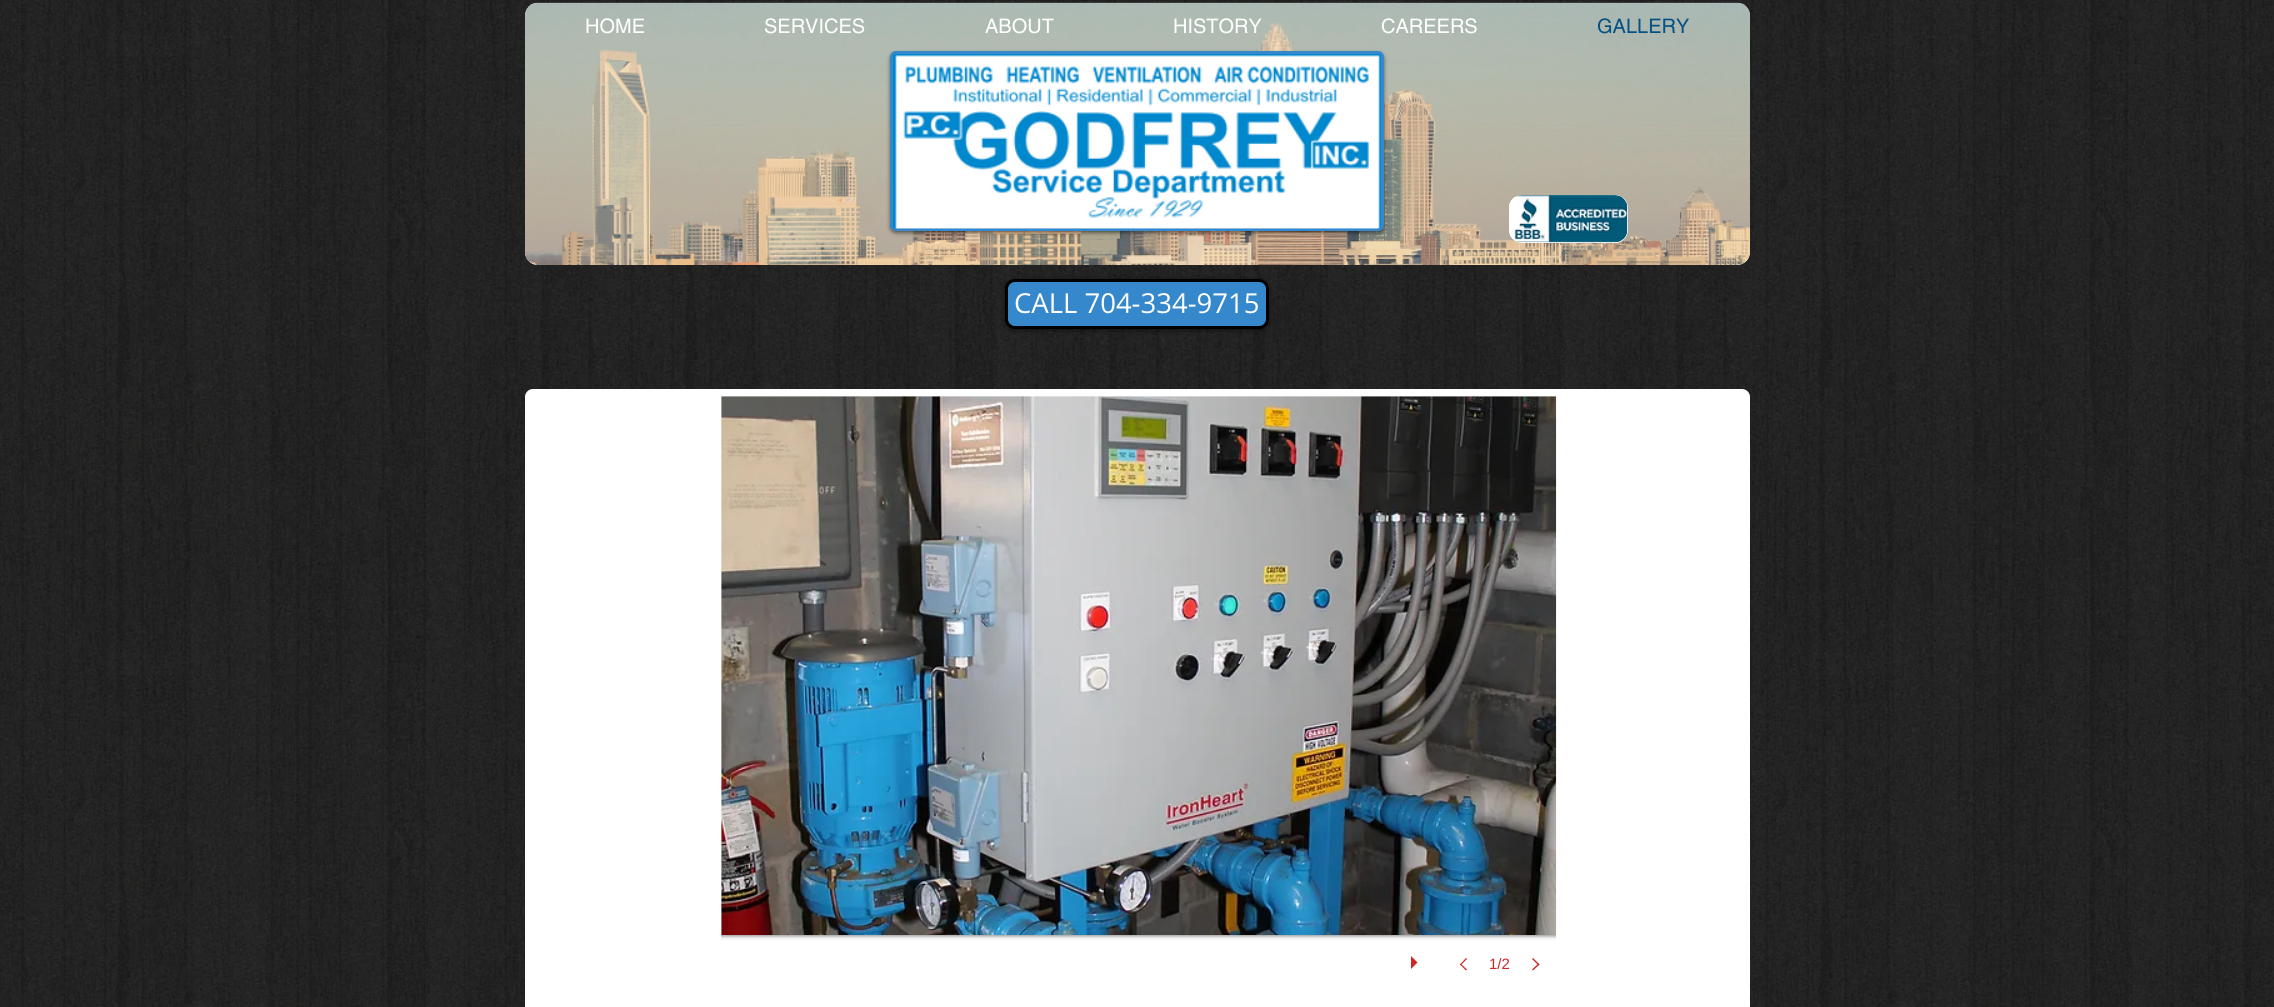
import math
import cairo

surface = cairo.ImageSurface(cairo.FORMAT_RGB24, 2274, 1007)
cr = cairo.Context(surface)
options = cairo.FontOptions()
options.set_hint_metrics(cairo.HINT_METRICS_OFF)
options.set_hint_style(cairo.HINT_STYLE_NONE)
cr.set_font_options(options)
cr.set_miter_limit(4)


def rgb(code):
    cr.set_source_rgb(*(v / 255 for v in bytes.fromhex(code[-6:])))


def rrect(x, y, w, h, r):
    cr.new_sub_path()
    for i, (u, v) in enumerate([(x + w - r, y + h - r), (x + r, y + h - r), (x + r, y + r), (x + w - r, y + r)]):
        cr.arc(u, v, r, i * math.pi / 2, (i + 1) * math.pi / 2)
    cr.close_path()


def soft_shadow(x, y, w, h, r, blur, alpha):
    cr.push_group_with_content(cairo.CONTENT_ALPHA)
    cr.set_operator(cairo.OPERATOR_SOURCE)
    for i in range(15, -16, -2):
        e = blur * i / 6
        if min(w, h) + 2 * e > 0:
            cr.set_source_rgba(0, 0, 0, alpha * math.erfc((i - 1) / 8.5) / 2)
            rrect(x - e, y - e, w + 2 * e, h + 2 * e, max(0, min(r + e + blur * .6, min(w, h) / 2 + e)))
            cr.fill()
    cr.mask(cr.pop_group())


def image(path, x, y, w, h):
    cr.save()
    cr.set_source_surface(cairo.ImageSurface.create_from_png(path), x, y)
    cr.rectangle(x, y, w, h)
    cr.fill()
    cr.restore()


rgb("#ffffff")
cr.paint()
image("img/1.png", 0, 0, 2274, 1007)
rgb("#ffffff")
rrect(525, 3, 1225, 262, 13)
cr.fill()
image("img/2.png", 525, 2, 1225, 263)
rgb("#000000")
soft_shadow(890, 53, 494, 180, 6, 2, 0.5)
rrect(891.5, 52.5, 491, 177, 4.5)
rgb("#3588cc")
cr.set_line_width(3)
cr.stroke()
image("img/3.png", 892, 54, 489, 175)
rgb("#ffffff")
rrect(1509, 195, 119, 48, 13)
cr.fill()
image("img/4.png", 1509, 195, 119, 48)
rgb("#000000")
soft_shadow(1005, 280, 264, 50, 10, 2.5, 0.6)
rgb("#3588cc")
rrect(1006.5, 280.5, 261, 47, 8.5)
cr.fill_preserve()
rgb("#000000")
cr.stroke()
rgb("#ffffff")
rrect(527.5, 391.5, 1220, 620, 5.5)
cr.fill_preserve()
cr.set_line_width(5)
cr.stroke()
cr.save()
cr.rectangle(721, 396, 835, 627)
cr.clip()
rgb("#000000")
soft_shadow(721, 398, 835, 538, 0, 2, 0.5)
cr.restore()
rgb("#f3f3f3")
cr.rectangle(721, 396, 835, 539)
cr.fill()
image("img/5.png", 721, 396, 836, 539)
rgb("#cc2828")
cr.new_path()
cr.move_to(1411, 969)
cr.line_to(1411, 956)
cr.line_to(1417.5, 962.5)
cr.close_path()
cr.fill()
cr.new_path()
cr.move_to(1460, 964.5)
cr.line_to(1466, 958)
cr.line_to(1467, 959)
cr.line_to(1460.5, 965.5)
cr.close_path()
cr.fill()
cr.new_path()
cr.move_to(1460, 964.5)
cr.line_to(1460.5, 963.5)
cr.line_to(1467, 969.5)
cr.line_to(1466, 970.5)
cr.close_path()
cr.fill()
cr.new_path()
cr.move_to(1532, 959)
cr.line_to(1533, 958)
cr.line_to(1539.5, 964.5)
cr.line_to(1538.5, 965.5)
cr.close_path()
cr.fill()
cr.new_path()
cr.move_to(1532, 969.5)
cr.line_to(1538.5, 963.5)
cr.line_to(1539.5, 964.5)
cr.line_to(1533, 970.5)
cr.close_path()
cr.fill()
cr.select_font_face("helvetica")
cr.set_font_size(20)
rgb("#ffffff")
for x, y, s in [
    (585, 33, "HOME"),
    (764, 33, "SERVICES"),
    (985, 33, "ABOUT"),
    (1173, 33, "HISTORY"),
    (1381, 33, "CAREERS"),
]:
    cr.move_to(x, y)
    cr.show_text(s)
rgb("#045184")
cr.move_to(1597, 33)
cr.show_text("GALLERY")
cr.select_font_face("Open Sans")
cr.set_font_size(27.5)
rgb("#ffffff")
cr.move_to(1014, 313)
cr.show_text("CALL 704-334-9715")
cr.select_font_face("Liberation Sans")
cr.set_font_size(15)
rgb("#cc2828")
cr.move_to(1489, 969)
cr.show_text("1/2")
surface.write_to_png("page.png")
